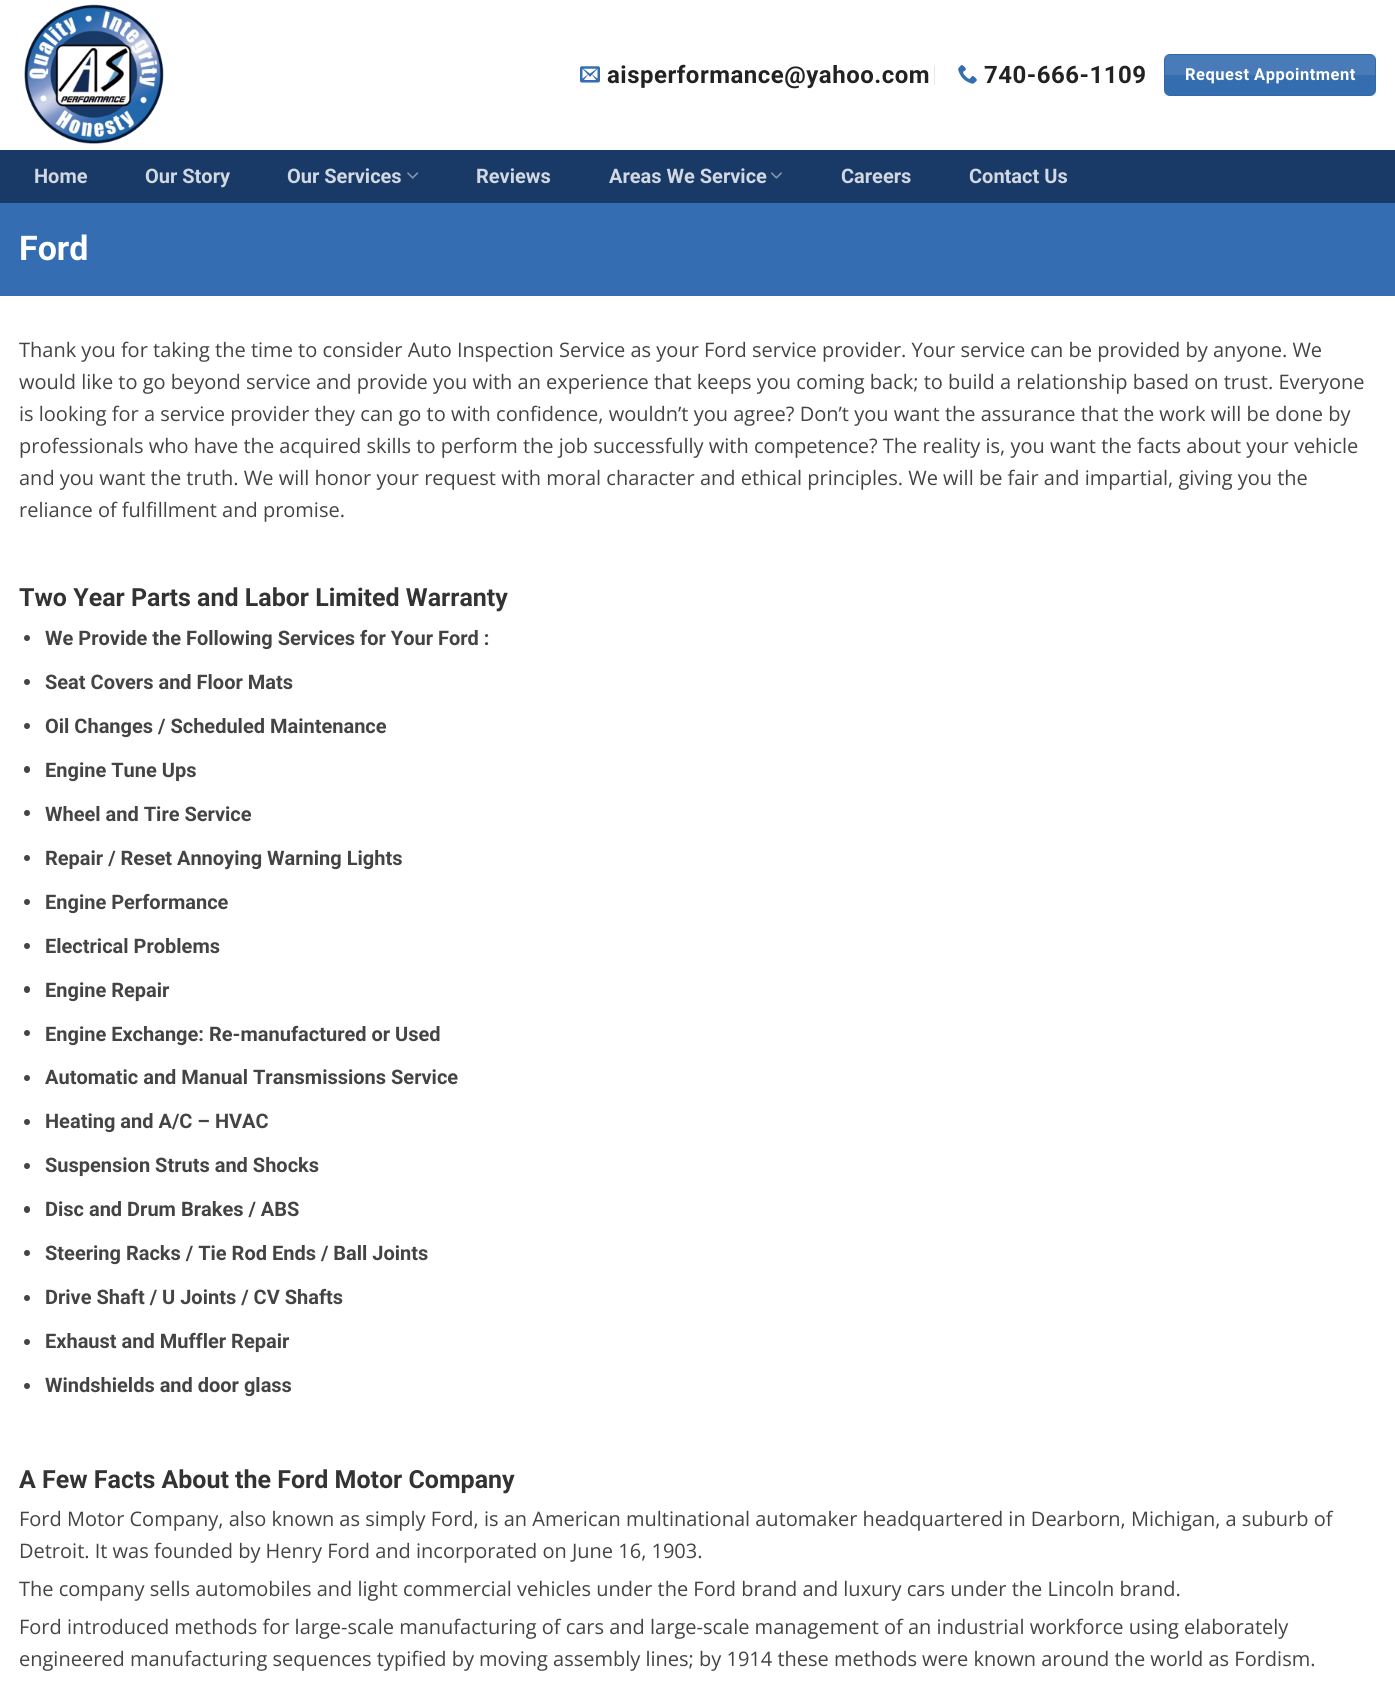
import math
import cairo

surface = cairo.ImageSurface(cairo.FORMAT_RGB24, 1395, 1687)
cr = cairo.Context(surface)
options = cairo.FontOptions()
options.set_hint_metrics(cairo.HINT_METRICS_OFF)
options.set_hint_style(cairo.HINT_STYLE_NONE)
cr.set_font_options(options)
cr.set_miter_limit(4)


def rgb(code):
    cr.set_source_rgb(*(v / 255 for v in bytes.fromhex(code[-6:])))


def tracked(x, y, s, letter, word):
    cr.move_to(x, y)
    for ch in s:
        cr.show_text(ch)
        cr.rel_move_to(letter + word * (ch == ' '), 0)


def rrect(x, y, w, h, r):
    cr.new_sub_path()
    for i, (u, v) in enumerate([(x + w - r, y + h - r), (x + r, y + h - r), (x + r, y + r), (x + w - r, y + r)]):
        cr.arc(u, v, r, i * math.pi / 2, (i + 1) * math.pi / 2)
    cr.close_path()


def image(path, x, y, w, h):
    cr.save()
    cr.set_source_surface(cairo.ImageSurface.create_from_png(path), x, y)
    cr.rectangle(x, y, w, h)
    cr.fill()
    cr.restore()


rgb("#ffffff")
cr.paint()
image("img/1.png", 24, 4, 140, 140)
image("img/2.png", 580, 66, 20, 17)
rgb("#e6e6e6")
cr.rectangle(934, 66, 1, 19)
cr.fill()
image("img/3.png", 958, 65, 19, 19)
rgb("#346db0")
rrect(1164, 54, 212, 42, 6)
cr.fill()
cr.rectangle(1164.5, 54.5, 211, 41)
cr.set_source_rgba(0, 0, 0, 0.05)
cr.set_line_width(1)
cr.stroke()
cr.set_source_rgba(1, 1, 1, 0.1)
cr.new_path()
cr.move_to(1170, 55)
cr.line_to(1370, 55)
cr.curve_to(1373, 55, 1375, 57, 1375, 60)
cr.line_to(1375, 75)
cr.line_to(1165, 75)
cr.line_to(1165, 60)
cr.curve_to(1165, 57, 1167, 55, 1170, 55)
cr.close_path()
cr.fill()
rgb("#193a67")
cr.rectangle(0, 150, 1395, 53)
cr.fill()
image("img/4.png", 407, 172, 12, 7)
image("img/5.png", 771, 172, 11, 7)
rgb("#346db1")
cr.rectangle(0, 203, 1395, 93)
cr.fill()
rgb("#444444")
cr.arc(27, 638, 3, 0, 2 * math.pi)
cr.fill()
cr.arc(27, 682, 3, 0, 2 * math.pi)
cr.fill()
cr.arc(27, 726, 3, 0, 2 * math.pi)
cr.fill()
rrect(24, 766, 6, 7, 3)
cr.fill()
cr.arc(27, 813, 3, 0, 2 * math.pi)
cr.fill()
cr.arc(27, 858, 3, 0, 2 * math.pi)
cr.fill()
cr.arc(27, 902, 3, 0, 2 * math.pi)
cr.fill()
cr.arc(27, 946, 3, 0, 2 * math.pi)
cr.fill()
rrect(24, 986, 6, 7, 3)
cr.fill()
cr.arc(27, 1033, 3, 0, 2 * math.pi)
cr.fill()
cr.arc(27, 1078, 3, 0, 2 * math.pi)
cr.fill()
cr.arc(27, 1122, 3, 0, 2 * math.pi)
cr.fill()
cr.arc(27, 1166, 3, 0, 2 * math.pi)
cr.fill()
rrect(24, 1206, 6, 7, 3)
cr.fill()
cr.arc(27, 1253, 3, 0, 2 * math.pi)
cr.fill()
cr.arc(27, 1298, 3, 0, 2 * math.pi)
cr.fill()
cr.arc(27, 1342, 3, 0, 2 * math.pi)
cr.fill()
cr.arc(27, 1386, 3, 0, 2 * math.pi)
cr.fill()
cr.select_font_face("Roboto", cairo.FONT_SLANT_NORMAL, cairo.FONT_WEIGHT_BOLD)
cr.set_font_size(24)
rgb("#222222")
tracked(607, 83, "aisperformance@yahoo.com", 0.5, 0)
tracked(984, 83, "740-666-1109", 0.5, 0)
cr.set_font_size(16.5)
rgb("#ffffff")
tracked(1185, 80, "Request Appointment", 0.5, 0)
cr.set_font_size(20)
rgb("#d1d8e1")
for x, y, s in [
    (34, 183, "Home"),
    (145, 183, "Our Story"),
    (287, 183, "Our Services"),
    (476, 183, "Reviews"),
    (609, 183, "Areas We Service"),
    (841, 183, "Careers"),
    (969, 183, "Contact Us"),
]:
    cr.move_to(x, y)
    cr.show_text(s)
cr.set_font_size(34)
rgb("#ffffff")
cr.move_to(19, 260)
cr.show_text("Ford")
cr.select_font_face("Open Sans")
cr.set_font_size(20)
rgb("#444444")
for x, y, s in [
    (19, 357, "Thank you for taking the time to consider Auto Inspection Service as your Ford service provider. Your service can be provided by anyone. We"),
    (19, 389, "would like to go beyond service and provide you with an experience that keeps you coming back; to build a relationship based on trust. Everyone"),
    (19, 421, "is looking for a service provider they can go to with confidence, wouldn’t you agree? Don’t you want the assurance that the work will be done by"),
    (19, 453, "professionals who have the acquired skills to perform the job successfully with competence? The reality is, you want the facts about your vehicle"),
    (19, 485, "and you want the truth. We will honor your request with moral character and ethical principles. We will be fair and impartial, giving you the"),
    (19, 517, "reliance of fulfillment and promise."),
]:
    cr.move_to(x, y)
    cr.show_text(s)
cr.select_font_face("Roboto", cairo.FONT_SLANT_NORMAL, cairo.FONT_WEIGHT_BOLD)
cr.set_font_size(25)
rgb("#333333")
cr.move_to(19, 606)
cr.show_text("Two Year Parts and Labor Limited Warranty")
cr.set_font_size(20)
rgb("#444444")
for x, y, s in [
    (45, 645, "We Provide the Following Services for Your Ford :"),
    (45, 689, "Seat Covers and Floor Mats"),
    (45, 733, "Oil Changes / Scheduled Maintenance"),
    (45, 777, "Engine Tune Ups"),
    (45, 821, "Wheel and Tire Service"),
    (45, 865, "Repair / Reset Annoying Warning Lights"),
    (45, 909, "Engine Performance"),
    (45, 953, "Electrical Problems"),
    (45, 997, "Engine Repair"),
    (45, 1041, "Engine Exchange: Re-manufactured or Used"),
    (45, 1084, "Automatic and Manual Transmissions Service"),
    (45, 1128, "Heating and A/C – HVAC"),
    (45, 1172, "Suspension Struts and Shocks"),
    (45, 1216, "Disc and Drum Brakes / ABS"),
    (45, 1260, "Steering Racks / Tie Rod Ends / Ball Joints"),
    (45, 1304, "Drive Shaft / U Joints / CV Shafts"),
    (45, 1348, "Exhaust and Muffler Repair"),
    (45, 1392, "Windshields and door glass"),
]:
    cr.move_to(x, y)
    cr.show_text(s)
cr.set_font_size(25)
rgb("#333333")
cr.move_to(19, 1488)
cr.show_text("A Few Facts About the Ford Motor Company")
cr.select_font_face("Open Sans")
cr.set_font_size(20)
rgb("#444444")
for x, y, s in [
    (19, 1526, "Ford Motor Company, also known as simply Ford, is an American multinational automaker headquartered in Dearborn, Michigan, a suburb of"),
    (19, 1558, "Detroit. It was founded by Henry Ford and incorporated on June 16, 1903."),
    (19, 1596, "The company sells automobiles and light commercial vehicles under the Ford brand and luxury cars under the Lincoln brand."),
    (19, 1634, "Ford introduced methods for large-scale manufacturing of cars and large-scale management of an industrial workforce using elaborately"),
    (19, 1666, "engineered manufacturing sequences typified by moving assembly lines; by 1914 these methods were known around the world as Fordism."),
]:
    cr.move_to(x, y)
    cr.show_text(s)
surface.write_to_png("page.png")
